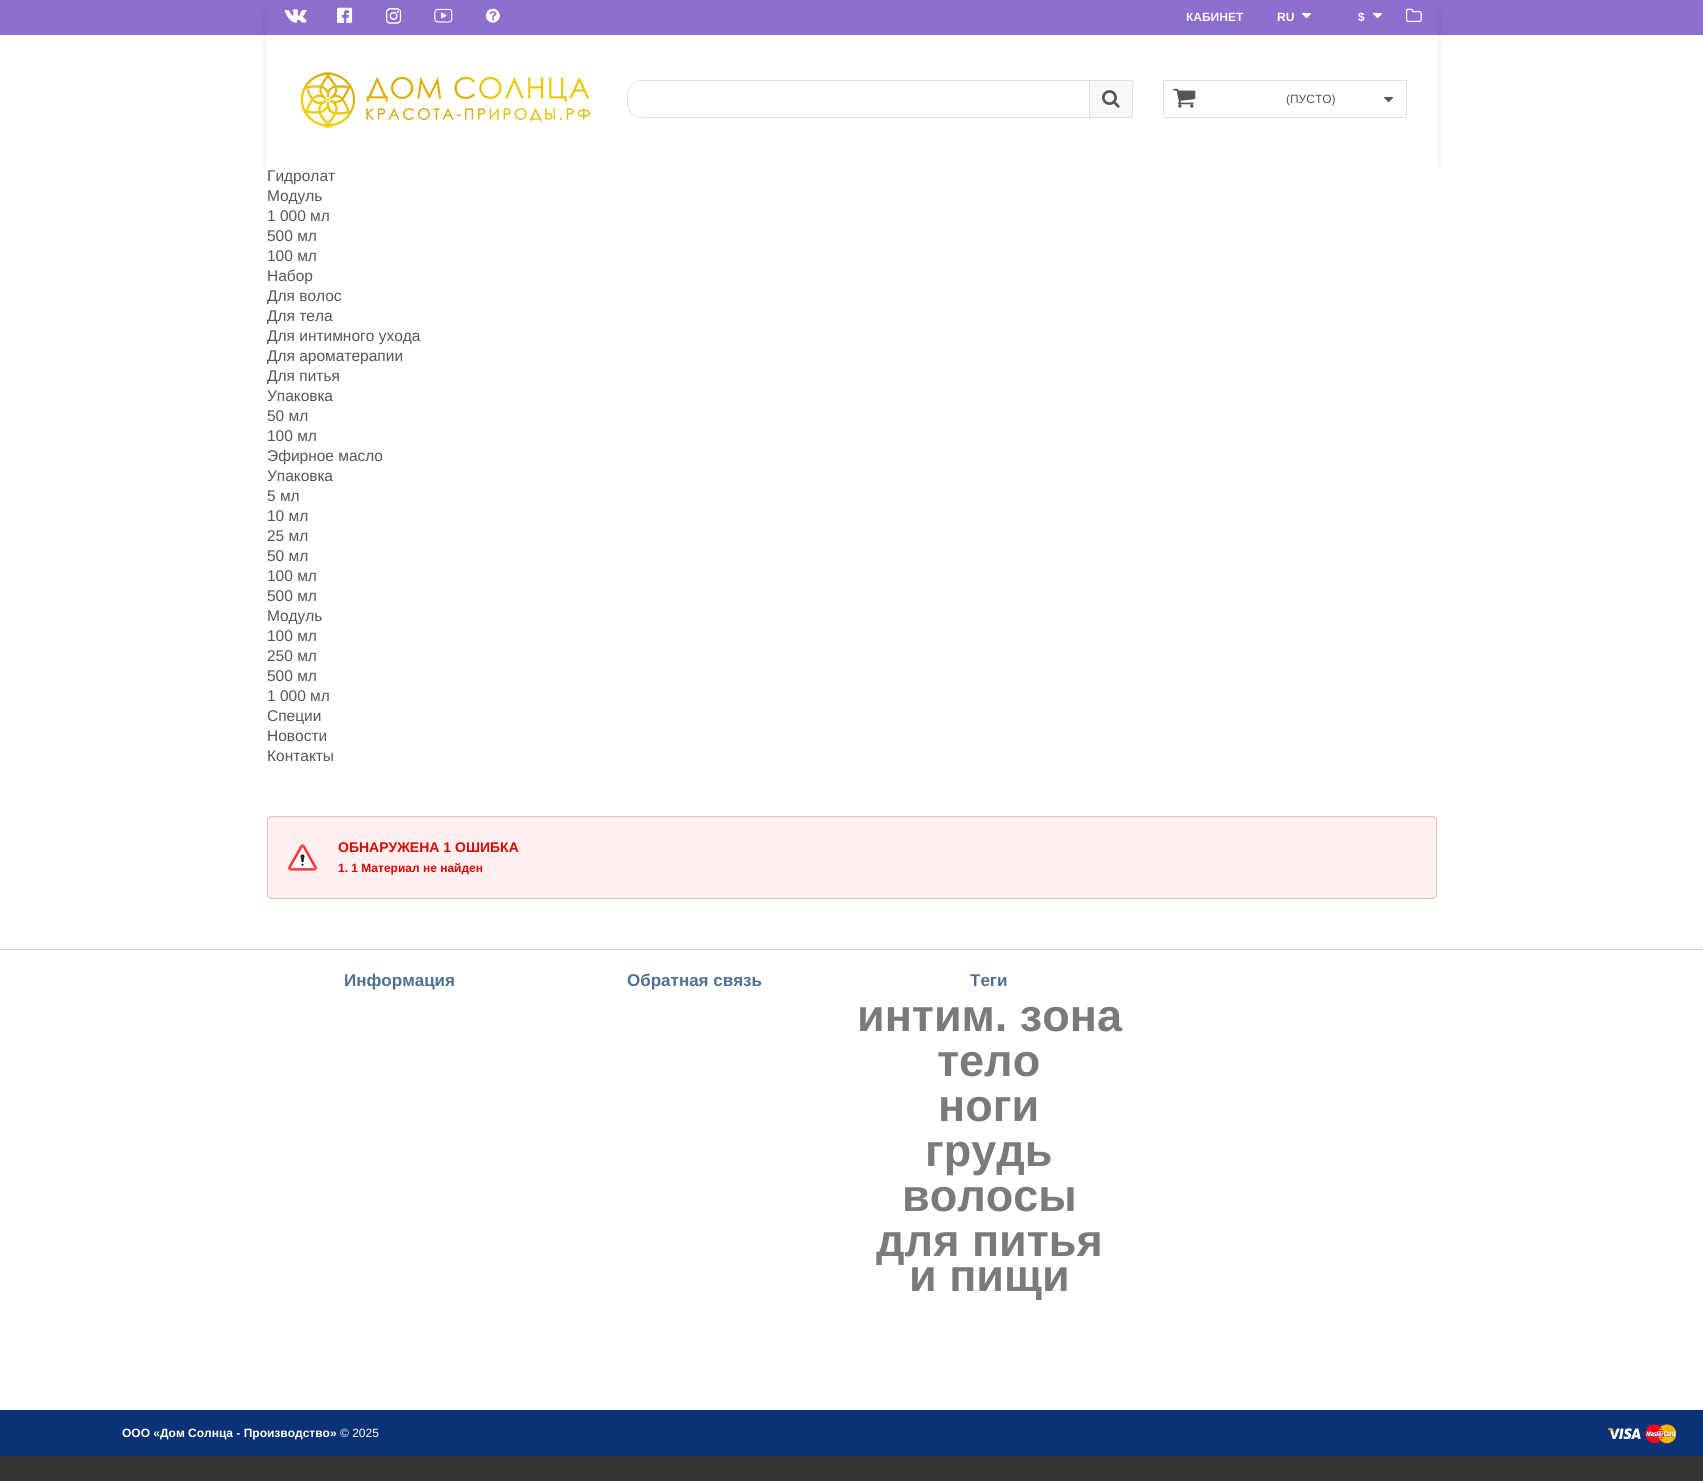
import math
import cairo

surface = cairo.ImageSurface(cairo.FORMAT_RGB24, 1703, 1481)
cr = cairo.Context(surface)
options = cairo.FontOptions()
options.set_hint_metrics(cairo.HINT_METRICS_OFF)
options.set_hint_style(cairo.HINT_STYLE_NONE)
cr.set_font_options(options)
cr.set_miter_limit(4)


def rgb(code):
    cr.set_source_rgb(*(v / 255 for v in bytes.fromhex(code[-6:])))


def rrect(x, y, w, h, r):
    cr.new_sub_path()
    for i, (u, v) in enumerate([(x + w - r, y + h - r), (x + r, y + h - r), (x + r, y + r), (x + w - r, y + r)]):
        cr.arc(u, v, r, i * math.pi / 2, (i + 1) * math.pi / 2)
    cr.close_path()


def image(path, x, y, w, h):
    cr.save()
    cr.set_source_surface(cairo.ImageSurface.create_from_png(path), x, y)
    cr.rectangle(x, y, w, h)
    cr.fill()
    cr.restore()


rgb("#333333")
cr.paint()
rgb("#ffffff")
cr.rectangle(0, 35, 1703, 1375)
cr.fill()
rgb("#8d6ecc")
cr.rectangle(0, 0, 1703, 35)
cr.fill()
image("img/1.png", 262, 5, 5, 163)
image("img/2.png", 284, 9, 23, 14)
image("img/3.png", 337, 7, 16, 16)
image("img/4.png", 386, 8, 16, 16)
image("img/5.png", 434, 8, 19, 15)
image("img/6.png", 486, 8, 14, 15)
image("img/7.png", 1302, 13, 10, 6)
image("img/7.png", 1373, 13, 10, 6)
image("img/8.png", 1406, 8, 16, 14)
image("img/9.png", 300, 72, 291, 56)
rgb("#dfdfdf")
cr.set_fill_rule(cairo.FILL_RULE_EVEN_ODD)
cr.new_path()
cr.move_to(642, 80)
cr.line_to(1131, 80)
cr.curve_to(1132, 80, 1133, 81, 1133, 82)
cr.line_to(1133, 116)
cr.curve_to(1133, 117, 1132, 118, 1131, 118)
cr.line_to(642, 118)
cr.curve_to(634, 118, 627, 111, 627, 103)
cr.line_to(627, 95)
cr.curve_to(627, 87, 634, 80, 642, 80)
cr.close_path()
cr.move_to(642, 81)
cr.line_to(1131, 81)
cr.curve_to(1132, 81, 1133, 81, 1133, 82)
cr.line_to(1133, 116)
cr.curve_to(1133, 117, 1132, 117, 1131, 117)
cr.line_to(642, 117)
cr.curve_to(634, 117, 628, 111, 628, 103)
cr.line_to(628, 95)
cr.curve_to(628, 87, 634, 81, 642, 81)
cr.close_path()
cr.fill()
rgb("#f8f8f8")
cr.new_path()
cr.move_to(1089.5, 80.5)
cr.line_to(1131, 80.5)
cr.curve_to(1132, 80.5, 1132.5, 81, 1132.5, 82)
cr.line_to(1132.5, 116)
cr.curve_to(1132.5, 117, 1132, 117.5, 1131, 117.5)
cr.line_to(1089.5, 117.5)
cr.close_path()
cr.fill_preserve()
rgb("#dfdfdf")
cr.set_line_width(1)
cr.stroke()
image("img/10.png", 1102, 90, 18, 18)
rrect(1163.5, 80.5, 243, 37, 1.5)
cr.stroke()
image("img/11.png", 1173, 88, 23, 20)
image("img/12.png", 1384, 97, 10, 6)
image("img/13.png", 1437, 5, 5, 163)
rgb("#fff1f0")
rrect(267, 816, 1170, 83, 4)
cr.fill()
image("img/14.png", 288, 844, 29, 27)
rrect(267.5, 816.5, 1169, 82, 3.5)
rgb("#ebbcb5")
cr.stroke()
rgb("#d4d4d4")
cr.rectangle(0, 949, 1703, 1)
cr.fill()
rgb("#0a3377")
cr.rectangle(0, 1410, 1703, 46)
cr.fill()
image("img/15.png", 1608, 1428, 33, 12)
image("img/16.png", 1645, 1424, 31, 20)
cr.select_font_face("Liberation Sans", cairo.FONT_SLANT_NORMAL, cairo.FONT_WEIGHT_BOLD)
cr.set_font_size(12)
rgb("#f3f3f3")
cr.move_to(1186, 21)
cr.show_text("КАБИНЕТ")
rgb("#ffffff")
cr.move_to(1277, 21)
cr.show_text("RU")
cr.move_to(1358, 21)
cr.show_text("$")
cr.select_font_face("Liberation Sans")
rgb("#565656")
cr.move_to(1286, 103)
cr.show_text("(ПУСТО)")
cr.set_font_size(15.5)
for x, y, s in [
    (267, 181, "Гидролат"),
    (267, 201, "Модуль"),
    (267, 221, "1 000 мл"),
    (267, 241, "500 мл"),
    (267, 261, "100 мл"),
    (267, 281, "Набор"),
    (267, 301, "Для волос"),
    (267, 321, "Для тела"),
    (267, 341, "Для интимного ухода"),
    (267, 361, "Для ароматерапии"),
    (267, 381, "Для питья"),
    (267, 401, "Упаковка"),
    (267, 421, "50 мл"),
    (267, 441, "100 мл"),
    (267, 461, "Эфирное масло"),
    (267, 481, "Упаковка"),
    (267, 501, "5 мл"),
    (267, 521, "10 мл"),
    (267, 541, "25 мл"),
    (267, 561, "50 мл"),
    (267, 581, "100 мл"),
    (267, 601, "500 мл"),
    (267, 621, "Модуль"),
    (267, 641, "100 мл"),
    (267, 661, "250 мл"),
    (267, 681, "500 мл"),
    (267, 701, "1 000 мл"),
    (267, 721, "Специи"),
    (267, 741, "Новости"),
    (267, 761, "Контакты"),
]:
    cr.move_to(x, y)
    cr.show_text(s)
cr.select_font_face("Liberation Sans", cairo.FONT_SLANT_NORMAL, cairo.FONT_WEIGHT_BOLD)
cr.set_font_size(14)
rgb("#df0505")
cr.move_to(338, 852)
cr.show_text("ОБНАРУЖЕНА 1 ОШИБКА")
cr.set_font_size(12)
cr.move_to(338, 872)
cr.show_text("1. 1 Материал не найден")
cr.set_font_size(17)
rgb("#507090")
for x, y, s in [
    (344, 986, "Информация"),
    (627, 986, "Обратная связь"),
    (970, 986, "Теги"),
]:
    cr.move_to(x, y)
    cr.show_text(s)
cr.set_font_size(45)
rgb("#7a7a7a")
for x, y, s in [
    (857, 1031, "интим. зона"),
    (937, 1076, "тело"),
    (938, 1121, "ноги"),
    (925, 1166, "грудь"),
    (902, 1211, "волосы"),
    (876, 1256, "для питья"),
    (909, 1291, "и пищи"),
]:
    cr.move_to(x, y)
    cr.show_text(s)
cr.set_font_size(12)
rgb("#ffffff")
cr.move_to(122, 1437)
cr.show_text("ООО «Дом Солнца - Производство»")
cr.select_font_face("Liberation Sans")
cr.move_to(340, 1437)
cr.show_text("© 2025")
surface.write_to_png("page.png")
